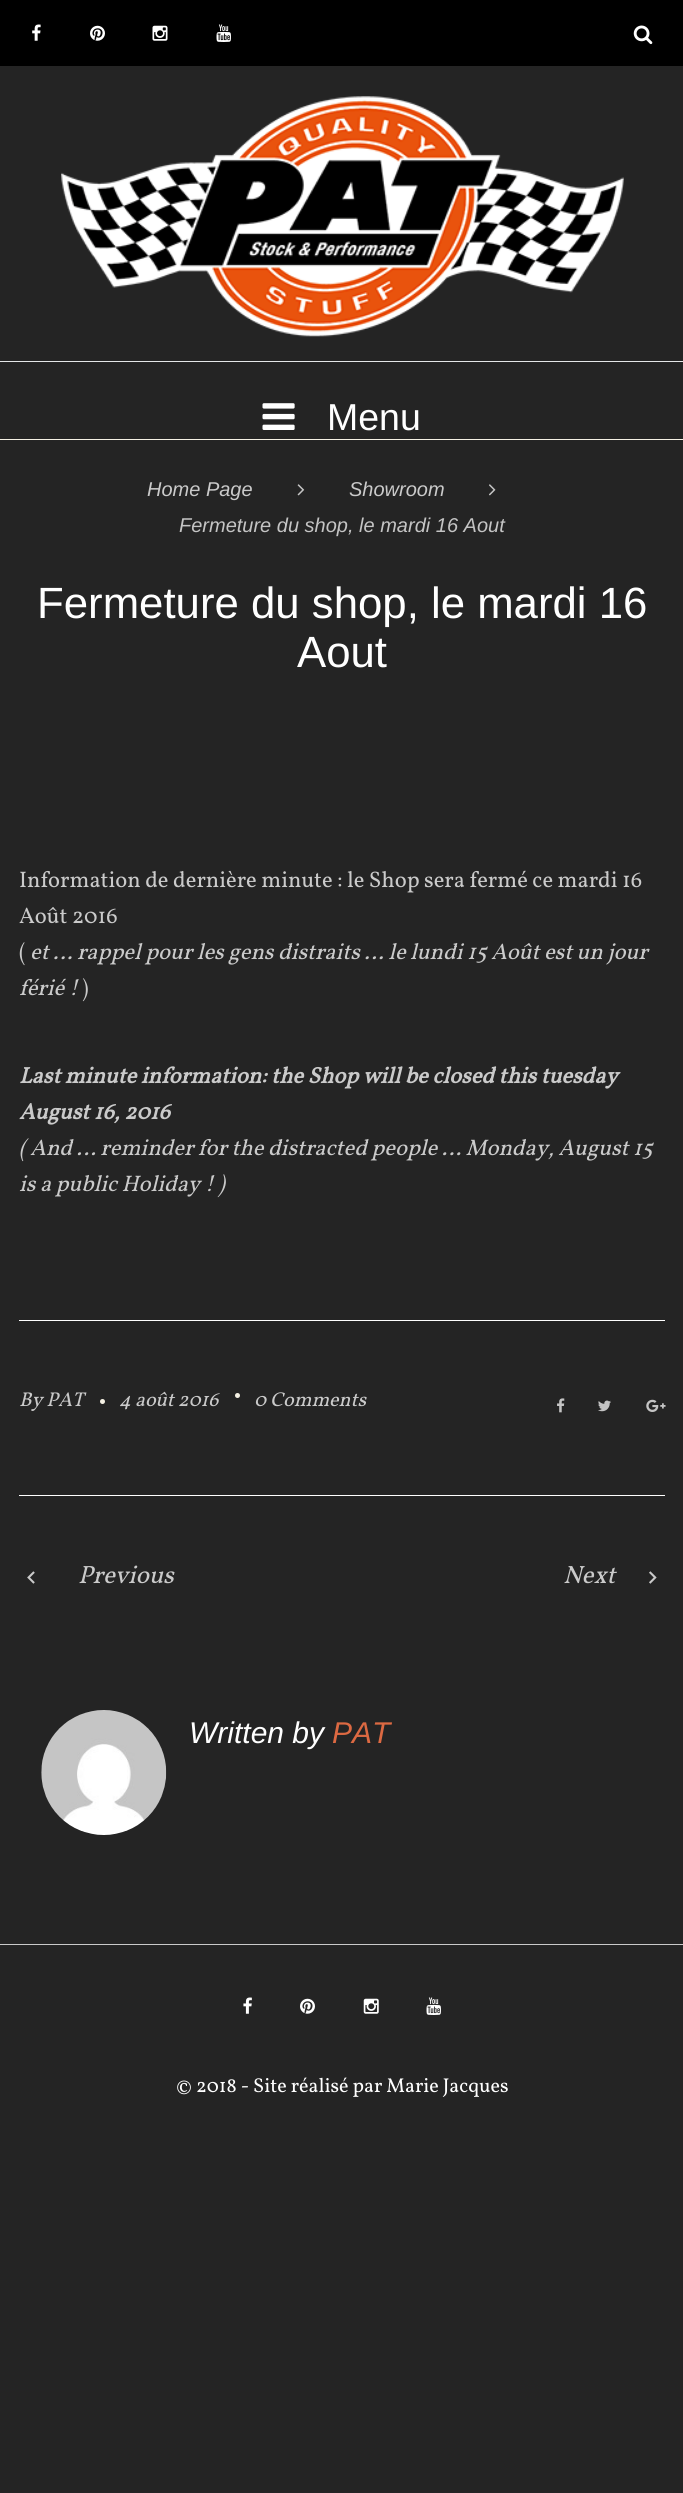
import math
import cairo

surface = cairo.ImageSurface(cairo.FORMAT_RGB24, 683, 2493)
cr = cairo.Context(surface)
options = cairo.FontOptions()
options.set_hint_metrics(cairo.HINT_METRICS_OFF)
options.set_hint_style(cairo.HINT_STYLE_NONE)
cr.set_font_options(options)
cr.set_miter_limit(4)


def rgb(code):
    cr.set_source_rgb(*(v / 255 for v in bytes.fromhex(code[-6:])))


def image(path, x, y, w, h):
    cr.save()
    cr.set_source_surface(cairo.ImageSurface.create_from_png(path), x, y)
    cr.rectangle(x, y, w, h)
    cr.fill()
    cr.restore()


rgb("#242424")
cr.paint()
rgb("#000000")
cr.rectangle(0, 0, 683, 66)
cr.fill()
image("img/1.png", 32, 24, 9, 17)
image("img/2.png", 90, 25, 15, 16)
image("img/3.png", 152, 25, 16, 16)
image("img/4.png", 216, 24, 15, 18)
image("img/5.png", 633, 25, 20, 20)
rgb("#f5f1e4")
cr.rectangle(0, 439, 683, 1)
cr.fill()
image("img/6.png", 61, 96, 563, 241)
rgb("#e5e7e8")
cr.rectangle(0, 361, 683, 1)
cr.fill()
image("img/7.png", 262, 403, 33, 27)
image("img/8.png", 297, 484, 8, 12)
image("img/9.png", 489, 484, 7, 12)
rgb("#ffffff")
cr.rectangle(19, 1320, 646, 1)
cr.fill()
cr.rectangle(19, 1495, 646, 1)
cr.fill()
rgb("#f5f1e4")
cr.arc(102.5, 1401.5, 2.5, 0, 2 * math.pi)
cr.fill()
cr.arc(237.5, 1395.5, 2.5, 0, 2 * math.pi)
cr.fill()
image("img/10.png", 557, 1398, 8, 15)
image("img/11.png", 598, 1400, 13, 12)
image("img/12.png", 646, 1399, 20, 13)
image("img/13.png", 27, 1571, 8, 13)
image("img/14.png", 649, 1571, 8, 13)
image("img/15.png", 41, 1710, 126, 125)
rgb("#cacaca")
cr.rectangle(0, 1944, 683, 1)
cr.fill()
image("img/16.png", 243, 1997, 9, 17)
image("img/17.png", 300, 1998, 15, 16)
image("img/18.png", 363, 1998, 16, 16)
image("img/19.png", 426, 1997, 15, 18)
cr.select_font_face("Liberation Sans")
cr.set_font_size(37.5)
rgb("#ffffff")
cr.move_to(327, 430)
cr.show_text("Menu")
cr.select_font_face("Liberation Sans", cairo.FONT_SLANT_ITALIC)
cr.set_font_size(20)
rgb("#cacaca")
cr.move_to(147, 496)
cr.show_text("Home Page")
cr.move_to(349, 496)
cr.show_text("Showroom")
rgb("#c4c4c4")
cr.move_to(179, 532)
cr.show_text("Fermeture du shop, le mardi 16 Aout")
cr.select_font_face("Liberation Sans")
cr.set_font_size(43.75)
rgb("#ffffff")
cr.move_to(37, 618)
cr.show_text("Fermeture du shop, le mardi 16")
cr.move_to(297, 667)
cr.show_text("Aout")
cr.select_font_face("Vollkorn")
cr.set_font_size(22.5)
rgb("#cacaca")
for x, y, s in [
    (19, 887, "Information de dernière minute : le Shop sera fermé ce mardi 16"),
    (19, 923, "Août 2016"),
    (19, 959, "("),
]:
    cr.move_to(x, y)
    cr.show_text(s)
cr.select_font_face("Vollkorn", cairo.FONT_SLANT_ITALIC)
cr.move_to(30, 959)
cr.show_text("et … rappel pour les gens distraits … le lundi 15 Août est un jour")
cr.move_to(19, 995)
cr.show_text("férié !")
cr.select_font_face("Vollkorn")
cr.move_to(82, 995)
cr.show_text(")")
cr.select_font_face("Vollkorn", cairo.FONT_SLANT_ITALIC, cairo.FONT_WEIGHT_BOLD)
cr.move_to(19, 1083)
cr.show_text("Last minute information: the Shop will be closed this tuesday")
cr.move_to(19, 1119)
cr.show_text("August 16, 2016")
cr.select_font_face("Vollkorn", cairo.FONT_SLANT_ITALIC)
cr.move_to(19, 1155)
cr.show_text("( And … reminder for the distracted people … Monday, August 15")
cr.move_to(19, 1191)
cr.show_text("is a public Holiday ! )")
cr.set_font_size(20)
for x, y, s in [
    (19, 1406, "By PAT"),
    (119, 1406, "4 août 2016"),
    (254, 1406, "0 Comments"),
]:
    cr.move_to(x, y)
    cr.show_text(s)
cr.set_font_size(25)
cr.move_to(78, 1583)
cr.show_text("Previous")
cr.move_to(563, 1583)
cr.show_text("Next")
cr.select_font_face("Liberation Sans", cairo.FONT_SLANT_ITALIC)
cr.set_font_size(30)
rgb("#ffffff")
cr.move_to(189, 1743)
cr.show_text("Written by")
rgb("#dc6942")
cr.move_to(332, 1743)
cr.show_text("PAT")
cr.select_font_face("Vollkorn")
cr.set_font_size(20)
rgb("#ffffff")
cr.move_to(176, 2092)
cr.show_text("© 2018 - Site réalisé par Marie Jacques")
surface.write_to_png("page.png")
